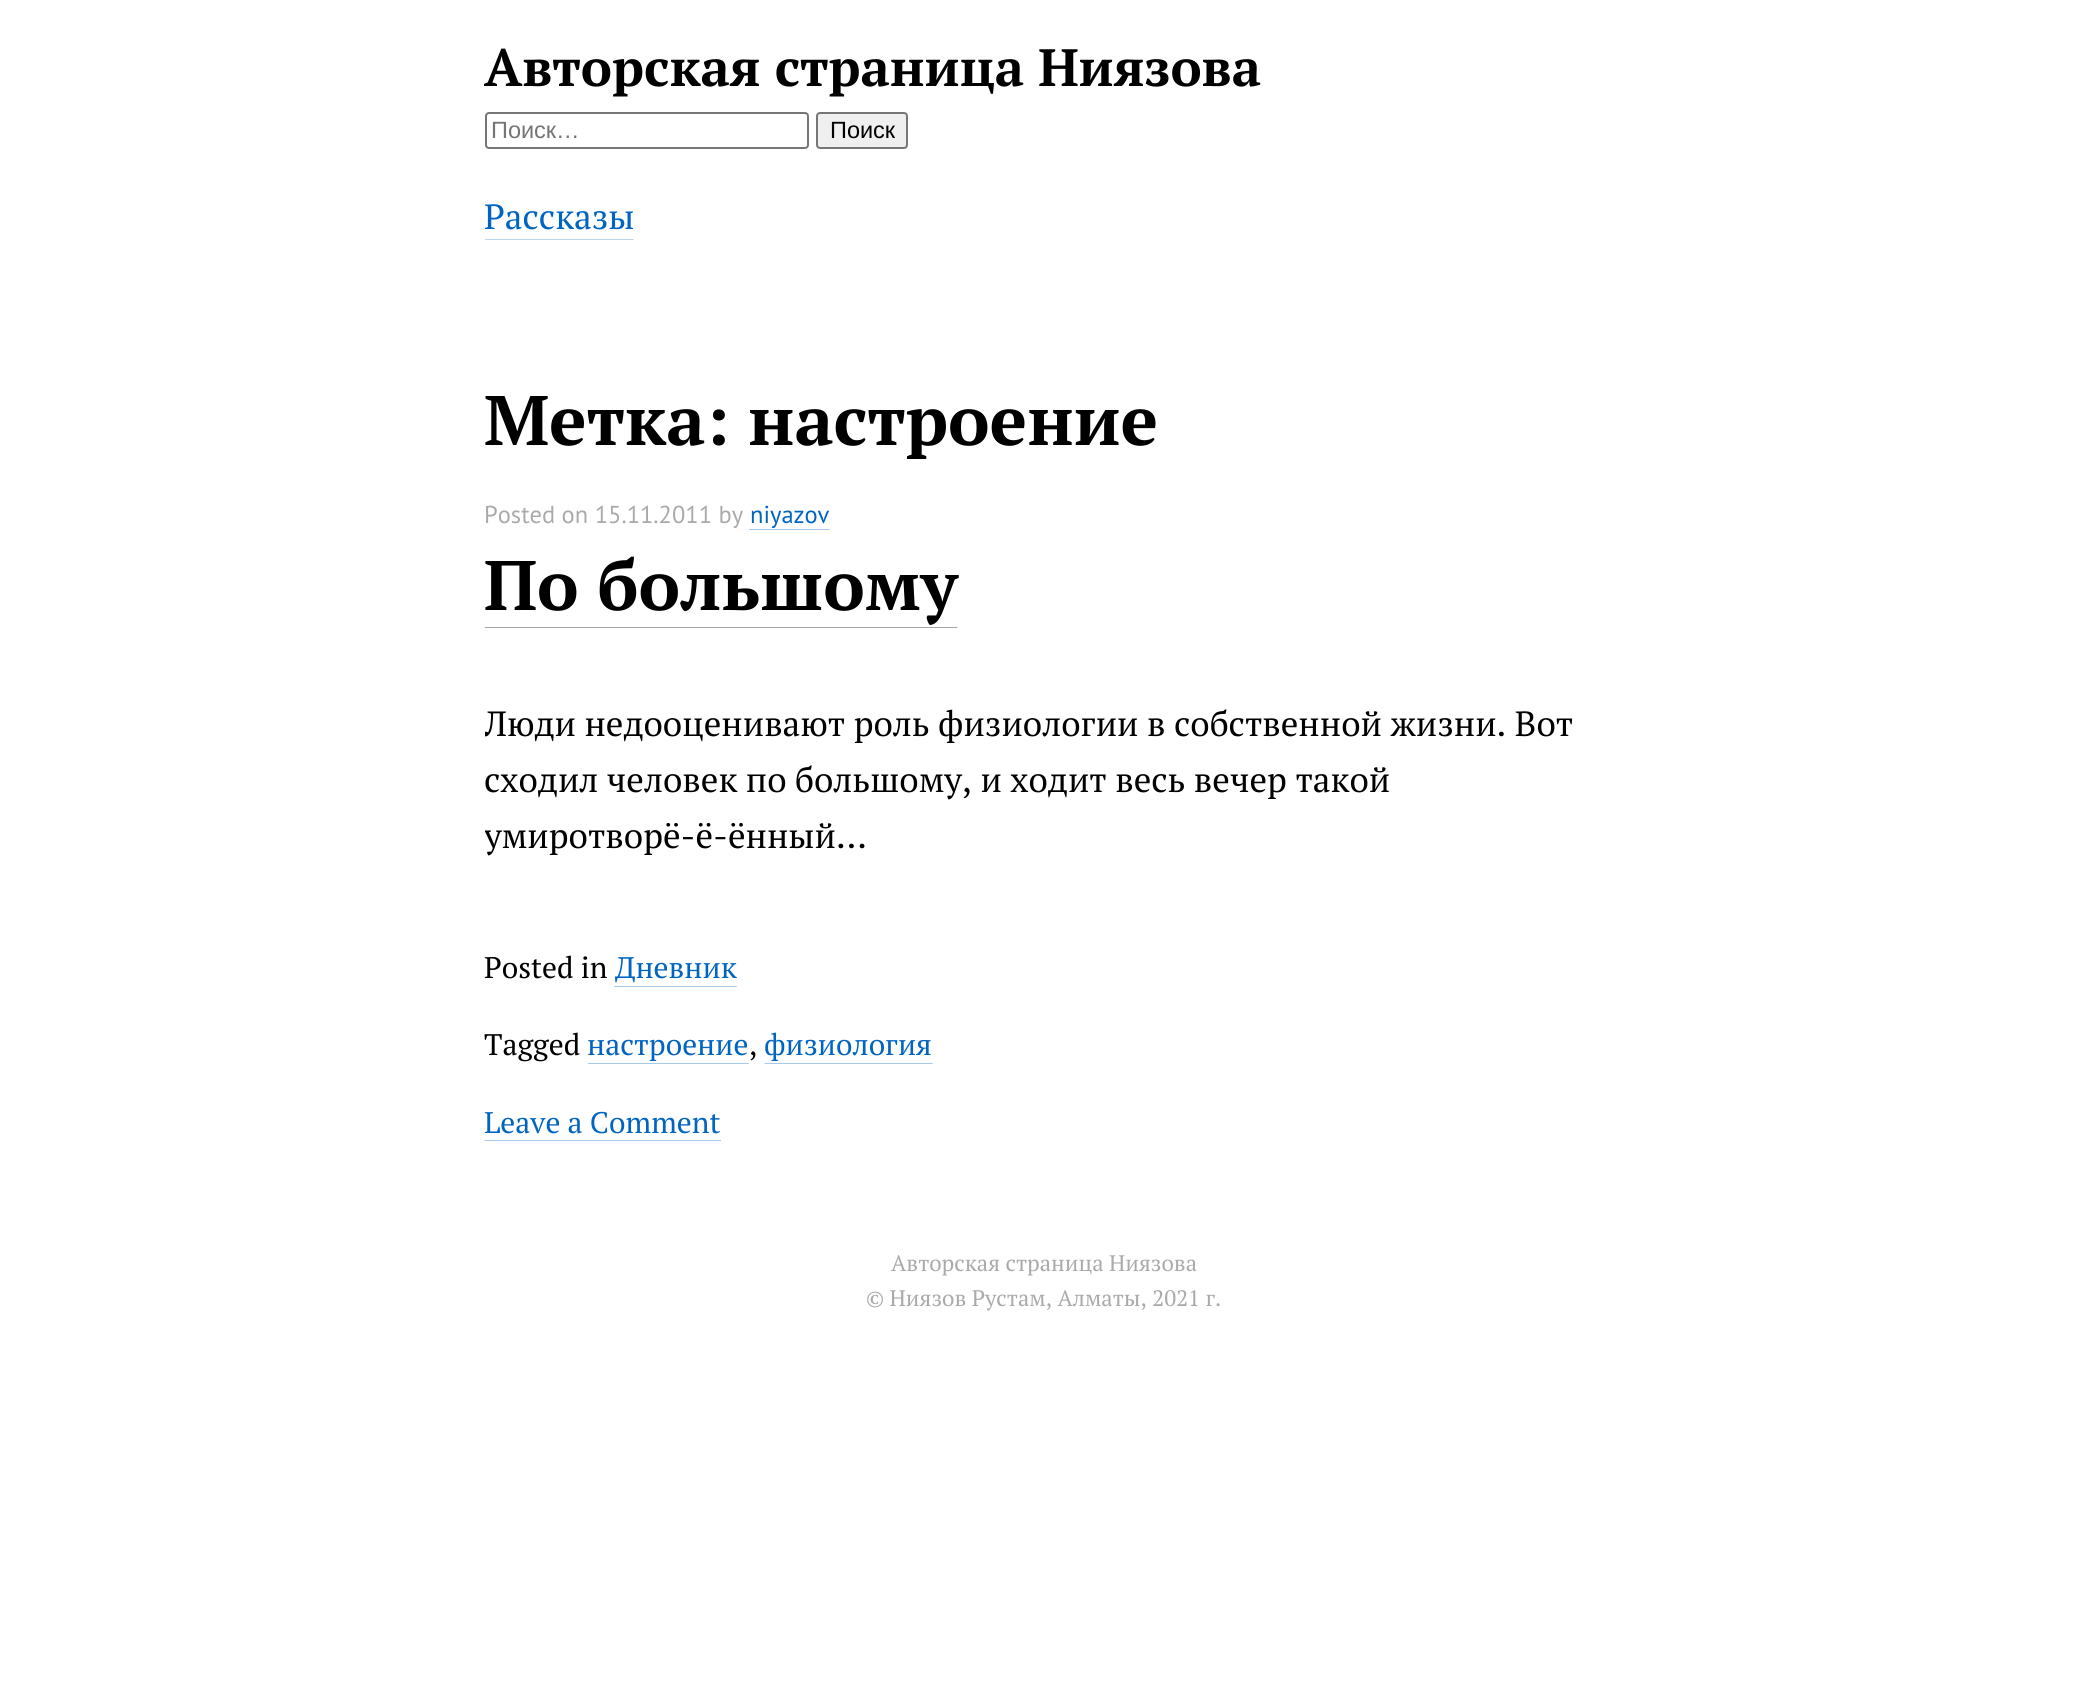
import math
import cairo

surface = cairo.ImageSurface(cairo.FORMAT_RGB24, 2087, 1684)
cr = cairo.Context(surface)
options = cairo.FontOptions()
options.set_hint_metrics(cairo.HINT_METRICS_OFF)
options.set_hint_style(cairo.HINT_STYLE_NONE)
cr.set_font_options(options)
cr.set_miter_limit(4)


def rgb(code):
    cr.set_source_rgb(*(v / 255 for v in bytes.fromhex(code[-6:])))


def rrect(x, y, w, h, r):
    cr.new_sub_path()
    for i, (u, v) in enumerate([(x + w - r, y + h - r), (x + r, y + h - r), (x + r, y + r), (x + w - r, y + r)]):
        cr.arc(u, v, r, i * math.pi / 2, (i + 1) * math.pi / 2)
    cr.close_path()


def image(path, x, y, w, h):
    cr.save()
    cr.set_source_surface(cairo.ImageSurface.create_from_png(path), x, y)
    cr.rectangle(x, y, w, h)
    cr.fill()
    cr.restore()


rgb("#ffffff")
cr.paint()
rrect(486, 113, 322, 35, 3)
rgb("#767676")
cr.stroke()
rgb("#efefef")
rrect(817, 113, 90, 35, 3)
cr.fill_preserve()
rgb("#767676")
cr.stroke()
image("img/1.png", 484, 239, 150, 1)
image("img/2.png", 749, 529, 81, 1)
image("img/3.png", 484, 627, 474, 1)
image("img/4.png", 614, 986, 123, 1)
rgb("#a6c9e9")
cr.rectangle(588, 1063, 161, 1)
cr.fill()
image("img/5.png", 764, 1063, 169, 1)
image("img/6.png", 484, 1140, 237, 1)
cr.select_font_face("PT Serif", cairo.FONT_SLANT_NORMAL, cairo.FONT_WEIGHT_BOLD)
cr.set_font_size(52.5)
rgb("#000000")
cr.move_to(484, 86)
cr.show_text("Авторская страница Ниязова")
cr.select_font_face("Liberation Sans")
cr.set_font_size(23.5)
rgb("#757575")
cr.move_to(491, 138)
cr.show_text("Поиск…")
rgb("#000000")
cr.move_to(830, 138)
cr.show_text("Поиск")
cr.select_font_face("PT Serif")
cr.set_font_size(35)
rgb("#0064c1")
cr.move_to(484, 229)
cr.show_text("Рассказы")
cr.select_font_face("PT Serif", cairo.FONT_SLANT_NORMAL, cairo.FONT_WEIGHT_BOLD)
cr.set_font_size(70)
rgb("#000000")
cr.move_to(484, 445)
cr.show_text("Метка: настроение")
cr.select_font_face("PT Sans")
cr.set_font_size(24.5)
rgb("#aaaaaa")
cr.move_to(484, 523)
cr.show_text("Posted on 15.11.2011 by")
rgb("#0064c1")
cr.move_to(750, 523)
cr.show_text("niyazov")
cr.select_font_face("PT Serif", cairo.FONT_SLANT_NORMAL, cairo.FONT_WEIGHT_BOLD)
cr.set_font_size(70)
rgb("#000000")
cr.move_to(484, 610)
cr.show_text("По большому")
cr.save()
cr.rectangle(485, 660, 1120, 238)
cr.clip()
cr.select_font_face("PT Serif")
cr.set_font_size(35)
cr.move_to(484, 736)
cr.show_text("Люди недооценивают роль физиологии в собственной жизни. Вот")
cr.restore()
cr.select_font_face("PT Serif")
cr.set_font_size(35)
cr.move_to(484, 792)
cr.show_text("сходил человек по большому, и ходит весь вечер такой")
cr.save()
cr.rectangle(485, 660, 1120, 238)
cr.clip()
cr.move_to(484, 848)
cr.show_text("умиротворё-ё-ённый…")
cr.restore()
cr.set_font_size(29.75)
cr.move_to(484, 978)
cr.show_text("Posted in")
rgb("#0064c1")
cr.move_to(615, 978)
cr.show_text("Дневник")
rgb("#000000")
cr.move_to(484, 1055)
cr.show_text("Tagged")
rgb("#0064c1")
cr.move_to(587, 1055)
cr.show_text("настроение")
rgb("#000000")
cr.move_to(749, 1055)
cr.show_text(",")
rgb("#0064c1")
cr.move_to(764, 1055)
cr.show_text("физиология")
cr.move_to(484, 1133)
cr.show_text("Leave a Comment")
cr.set_font_size(22.4)
rgb("#aaaaaa")
cr.move_to(891, 1271)
cr.show_text("Авторская страница Ниязова")
cr.move_to(866, 1306)
cr.show_text("© Ниязов Рустам, Алматы, 2021 г.")
surface.write_to_png("page.png")
